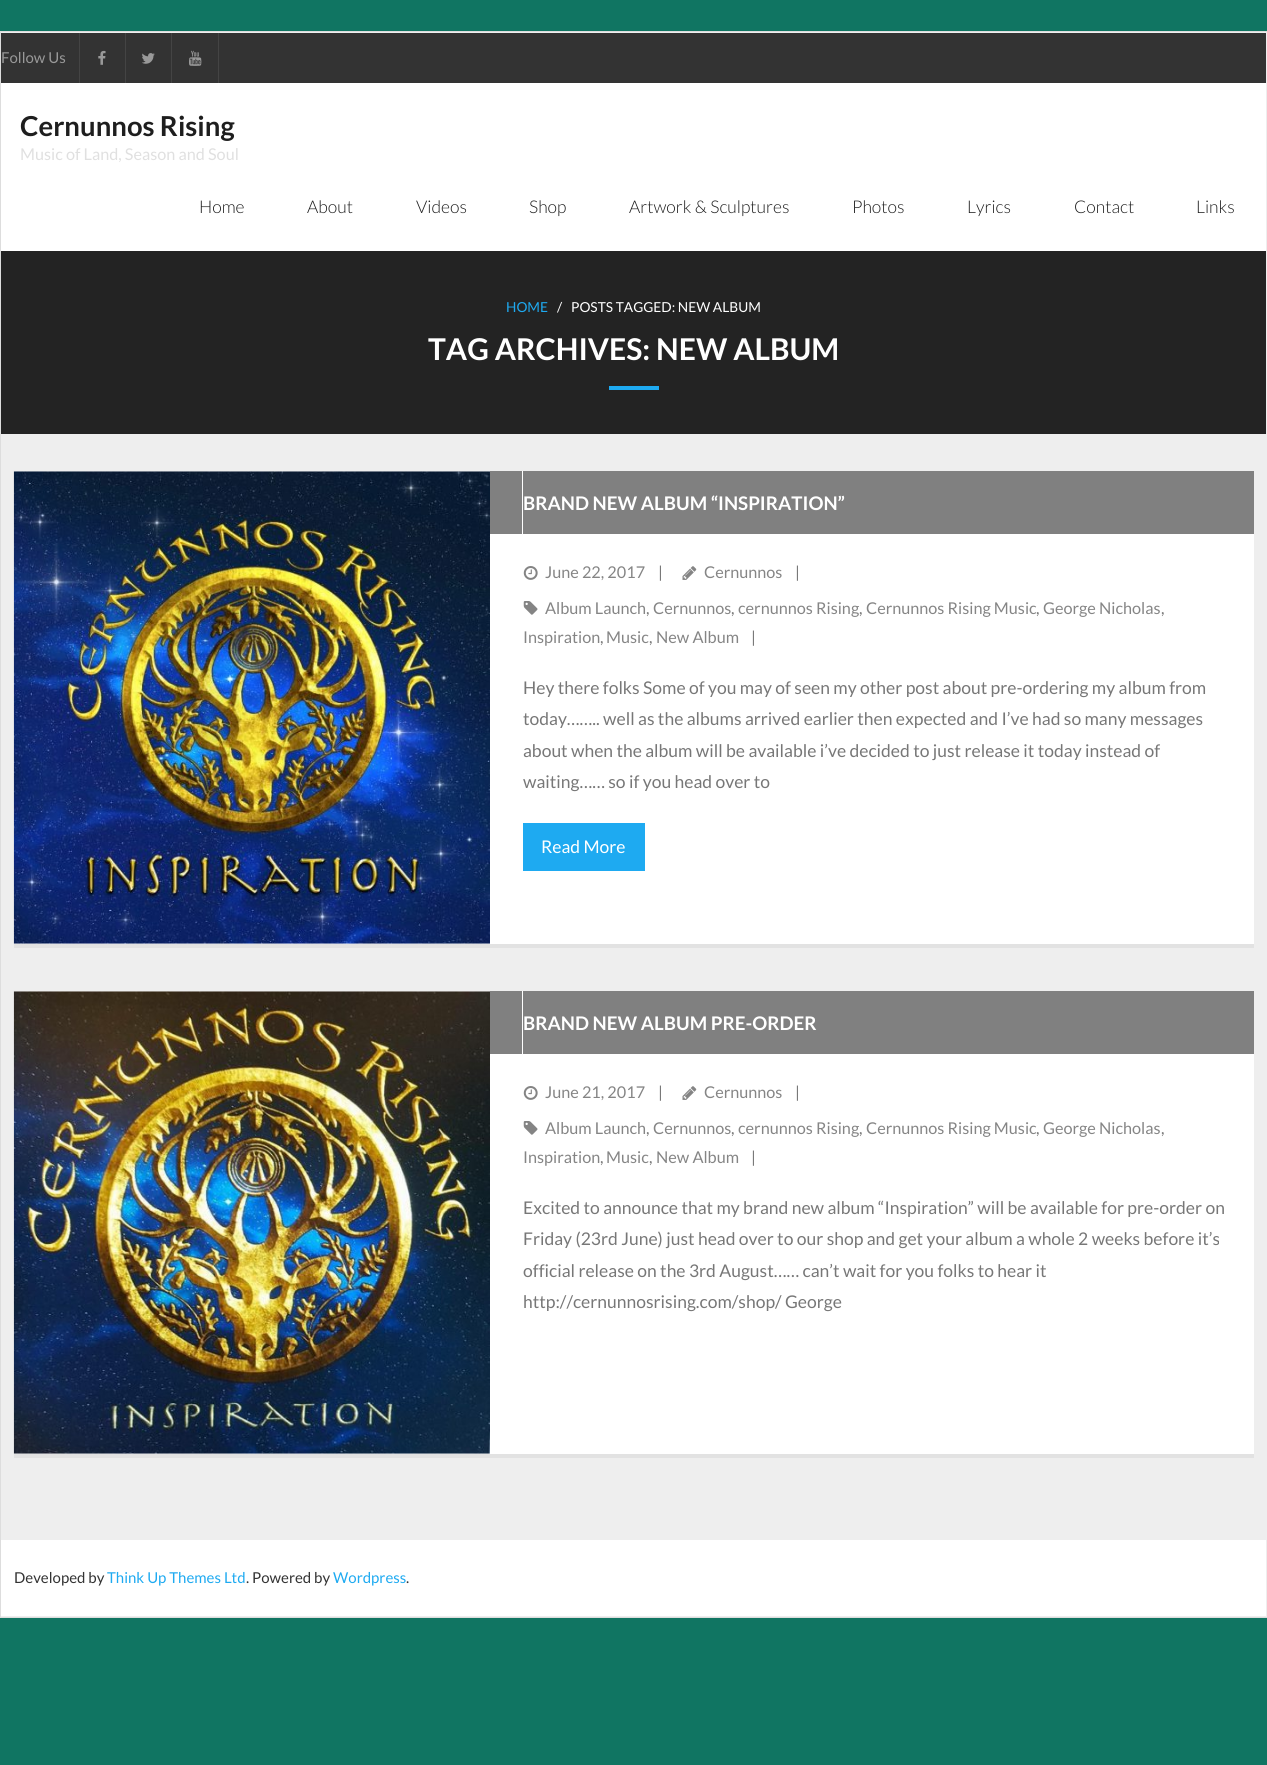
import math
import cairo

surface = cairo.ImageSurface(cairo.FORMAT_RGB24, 1267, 1765)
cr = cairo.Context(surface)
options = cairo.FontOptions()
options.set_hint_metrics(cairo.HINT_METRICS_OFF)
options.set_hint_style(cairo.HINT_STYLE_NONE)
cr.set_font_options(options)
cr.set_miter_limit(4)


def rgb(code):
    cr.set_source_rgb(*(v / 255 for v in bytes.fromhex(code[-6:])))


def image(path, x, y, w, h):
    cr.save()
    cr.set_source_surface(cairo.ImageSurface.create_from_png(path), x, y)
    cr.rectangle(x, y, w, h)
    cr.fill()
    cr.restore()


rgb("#107562")
cr.paint()
rgb("#eeeeee")
cr.rectangle(0.5, 31.5, 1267, 1586)
cr.fill_preserve()
rgb("#dddddd")
cr.set_line_width(1)
cr.stroke()
rgb("#333333")
cr.rectangle(1, 33, 1265, 50)
cr.fill()
rgb("#444444")
cr.rectangle(79, 33, 1, 50)
cr.fill()
image("img/1.png", 98, 50, 8, 15)
cr.rectangle(125, 33, 1, 50)
cr.fill()
image("img/2.png", 142, 53, 13, 11)
cr.rectangle(218, 33, 1, 50)
cr.fill()
cr.rectangle(171, 33, 1, 50)
cr.fill()
image("img/3.png", 189, 50, 13, 16)
for x, y, w, h, color in [
    (1, 83, 1265, 168, "#ffffff"),
    (1, 251, 1265, 183, "#232323"),
    (609, 386, 50, 4, "#1eaaf1"),
    (490, 471, 764, 473, "#ffffff"),
    (14, 944, 1240, 4, "#e2e2e2"),
]:
    rgb(color)
    cr.rectangle(x, y, w, h)
    cr.fill()
rgb("#808080")
cr.new_path()
cr.move_to(23, 471)
cr.line_to(23, 534)
cr.line_to(754, 534)
cr.line_to(522, 534)
cr.line_to(522, 471)
cr.line_to(754, 471)
cr.close_path()
cr.fill()
rgb("#ffffff")
cr.rectangle(14, 471, 476, 473)
cr.fill()
image("img/4.png", 13, 471, 477, 473)
rgb("#808080")
cr.rectangle(523, 471, 731, 63)
cr.fill()
image("img/5.png", 523, 566, 15, 14)
image("img/6.png", 682, 566, 15, 14)
image("img/7.png", 523, 601, 15, 14)
for x, y, w, h, color in [
    (523, 823, 122, 48, "#1eaaf1"),
    (490, 991, 764, 463, "#ffffff"),
    (14, 1454, 1240, 4, "#e2e2e2"),
]:
    rgb(color)
    cr.rectangle(x, y, w, h)
    cr.fill()
rgb("#808080")
cr.new_path()
cr.move_to(23, 991)
cr.line_to(23, 1054)
cr.line_to(754, 1054)
cr.line_to(522, 1054)
cr.line_to(522, 991)
cr.line_to(754, 991)
cr.close_path()
cr.fill()
rgb("#ffffff")
cr.rectangle(14, 991, 476, 463)
cr.fill()
image("img/8.png", 13, 991, 477, 463)
rgb("#808080")
cr.rectangle(523, 991, 731, 63)
cr.fill()
image("img/5.png", 523, 1086, 15, 14)
image("img/6.png", 682, 1086, 15, 14)
image("img/7.png", 523, 1121, 15, 14)
rgb("#ffffff")
cr.rectangle(1, 1540, 1265, 76)
cr.fill()
cr.select_font_face("Lato")
cr.set_font_size(15)
rgb("#999999")
cr.move_to(1, 63)
cr.show_text("Follow Us")
cr.select_font_face("Lato", cairo.FONT_SLANT_NORMAL, cairo.FONT_WEIGHT_BOLD)
cr.set_font_size(27.5)
rgb("#1e1e1e")
cr.move_to(20, 136)
cr.show_text("Cernunnos Rising")
cr.select_font_face("Lato")
cr.set_font_size(16.25)
rgb("#e0e0e0")
cr.move_to(20, 160)
cr.show_text("Music of Land, Season and Soul")
cr.select_font_face("Lato Light")
cr.set_font_size(17.5)
rgb("#1e1e1e")
for x, y, s in [
    (199, 213, "Home"),
    (307, 213, "About"),
    (416, 213, "Videos"),
    (529, 213, "Shop"),
    (629, 213, "Artwork & Sculptures"),
    (852, 213, "Photos"),
    (967, 213, "Lyrics"),
    (1074, 213, "Contact"),
    (1196, 213, "Links"),
]:
    cr.move_to(x, y)
    cr.show_text(s)
cr.select_font_face("Lato")
cr.set_font_size(13.75)
rgb("#1eaaf1")
cr.move_to(506, 312)
cr.show_text("HOME")
rgb("#ffffff")
cr.move_to(557, 312)
cr.show_text("/")
cr.move_to(571, 312)
cr.show_text("POSTS TAGGED: NEW ALBUM")
cr.select_font_face("Lato", cairo.FONT_SLANT_NORMAL, cairo.FONT_WEIGHT_BOLD)
cr.set_font_size(30)
cr.move_to(428, 360)
cr.show_text("TAG ARCHIVES: NEW ALBUM")
cr.set_font_size(18.75)
cr.move_to(523, 510)
cr.show_text("BRAND NEW ALBUM “INSPIRATION”")
cr.select_font_face("Lato")
cr.set_font_size(16.25)
rgb("#858585")
cr.move_to(545, 578)
cr.show_text("June 22, 2017")
rgb("#777777")
cr.move_to(658, 578)
cr.show_text("|")
rgb("#858585")
cr.move_to(704, 578)
cr.show_text("Cernunnos")
rgb("#777777")
cr.move_to(795, 578)
cr.show_text("|")
rgb("#858585")
cr.move_to(545, 614)
cr.show_text("Album Launch")
rgb("#777777")
cr.move_to(646, 614)
cr.show_text(",")
rgb("#858585")
cr.move_to(653, 614)
cr.show_text("Cernunnos")
rgb("#777777")
cr.move_to(731, 614)
cr.show_text(",")
rgb("#858585")
cr.move_to(738, 614)
cr.show_text("cernunnos Rising")
rgb("#777777")
cr.move_to(859, 614)
cr.show_text(",")
rgb("#858585")
cr.move_to(866, 614)
cr.show_text("Cernunnos Rising Music")
rgb("#777777")
cr.move_to(1036, 614)
cr.show_text(",")
rgb("#858585")
cr.move_to(1043, 614)
cr.show_text("George Nicholas")
rgb("#777777")
cr.move_to(1161, 614)
cr.show_text(",")
rgb("#858585")
cr.move_to(523, 643)
cr.show_text("Inspiration")
rgb("#777777")
cr.move_to(600, 643)
cr.show_text(",")
rgb("#858585")
cr.move_to(606, 643)
cr.show_text("Music")
rgb("#777777")
cr.move_to(649, 643)
cr.show_text(",")
rgb("#858585")
cr.move_to(656, 643)
cr.show_text("New Album")
rgb("#777777")
cr.move_to(751, 643)
cr.show_text("|")
cr.set_font_size(17.5)
for x, y, s in [
    (523, 694, "Hey there folks Some of you may of seen my other post about pre-ordering my album from"),
    (523, 725, "today…….. well as the albums arrived earlier then expected and I’ve had so many messages"),
    (523, 757, "about when the album will be available i’ve decided to just release it today instead of"),
    (523, 788, "waiting…… so if you head over to"),
]:
    cr.move_to(x, y)
    cr.show_text(s)
rgb("#ffffff")
cr.move_to(541, 853)
cr.show_text("Read More")
cr.select_font_face("Lato", cairo.FONT_SLANT_NORMAL, cairo.FONT_WEIGHT_BOLD)
cr.set_font_size(18.75)
cr.move_to(523, 1030)
cr.show_text("BRAND NEW ALBUM PRE-ORDER")
cr.select_font_face("Lato")
cr.set_font_size(16.25)
rgb("#858585")
cr.move_to(545, 1098)
cr.show_text("June 21, 2017")
rgb("#777777")
cr.move_to(658, 1098)
cr.show_text("|")
rgb("#858585")
cr.move_to(704, 1098)
cr.show_text("Cernunnos")
rgb("#777777")
cr.move_to(795, 1098)
cr.show_text("|")
rgb("#858585")
cr.move_to(545, 1134)
cr.show_text("Album Launch")
rgb("#777777")
cr.move_to(646, 1134)
cr.show_text(",")
rgb("#858585")
cr.move_to(653, 1134)
cr.show_text("Cernunnos")
rgb("#777777")
cr.move_to(731, 1134)
cr.show_text(",")
rgb("#858585")
cr.move_to(738, 1134)
cr.show_text("cernunnos Rising")
rgb("#777777")
cr.move_to(859, 1134)
cr.show_text(",")
rgb("#858585")
cr.move_to(866, 1134)
cr.show_text("Cernunnos Rising Music")
rgb("#777777")
cr.move_to(1036, 1134)
cr.show_text(",")
rgb("#858585")
cr.move_to(1043, 1134)
cr.show_text("George Nicholas")
rgb("#777777")
cr.move_to(1161, 1134)
cr.show_text(",")
rgb("#858585")
cr.move_to(523, 1163)
cr.show_text("Inspiration")
rgb("#777777")
cr.move_to(600, 1163)
cr.show_text(",")
rgb("#858585")
cr.move_to(606, 1163)
cr.show_text("Music")
rgb("#777777")
cr.move_to(649, 1163)
cr.show_text(",")
rgb("#858585")
cr.move_to(656, 1163)
cr.show_text("New Album")
rgb("#777777")
cr.move_to(751, 1163)
cr.show_text("|")
cr.set_font_size(17.5)
for x, y, s in [
    (523, 1214, "Excited to announce that my brand new album “Inspiration” will be available for pre-order on"),
    (523, 1245, "Friday (23rd June) just head over to our shop and get your album a whole 2 weeks before it’s"),
    (523, 1277, "official release on the 3rd August…… can’t wait for you folks to hear it"),
    (523, 1308, "http://cernunnosrising.com/shop/ George"),
]:
    cr.move_to(x, y)
    cr.show_text(s)
cr.set_font_size(15)
rgb("#333333")
cr.move_to(14, 1583)
cr.show_text("Developed by")
rgb("#1eaaf1")
cr.move_to(107, 1583)
cr.show_text("Think Up Themes Ltd")
rgb("#333333")
cr.move_to(246, 1583)
cr.show_text(". Powered by")
rgb("#1eaaf1")
cr.move_to(333, 1583)
cr.show_text("Wordpress")
rgb("#333333")
cr.move_to(406, 1583)
cr.show_text(".")
surface.write_to_png("page.png")
